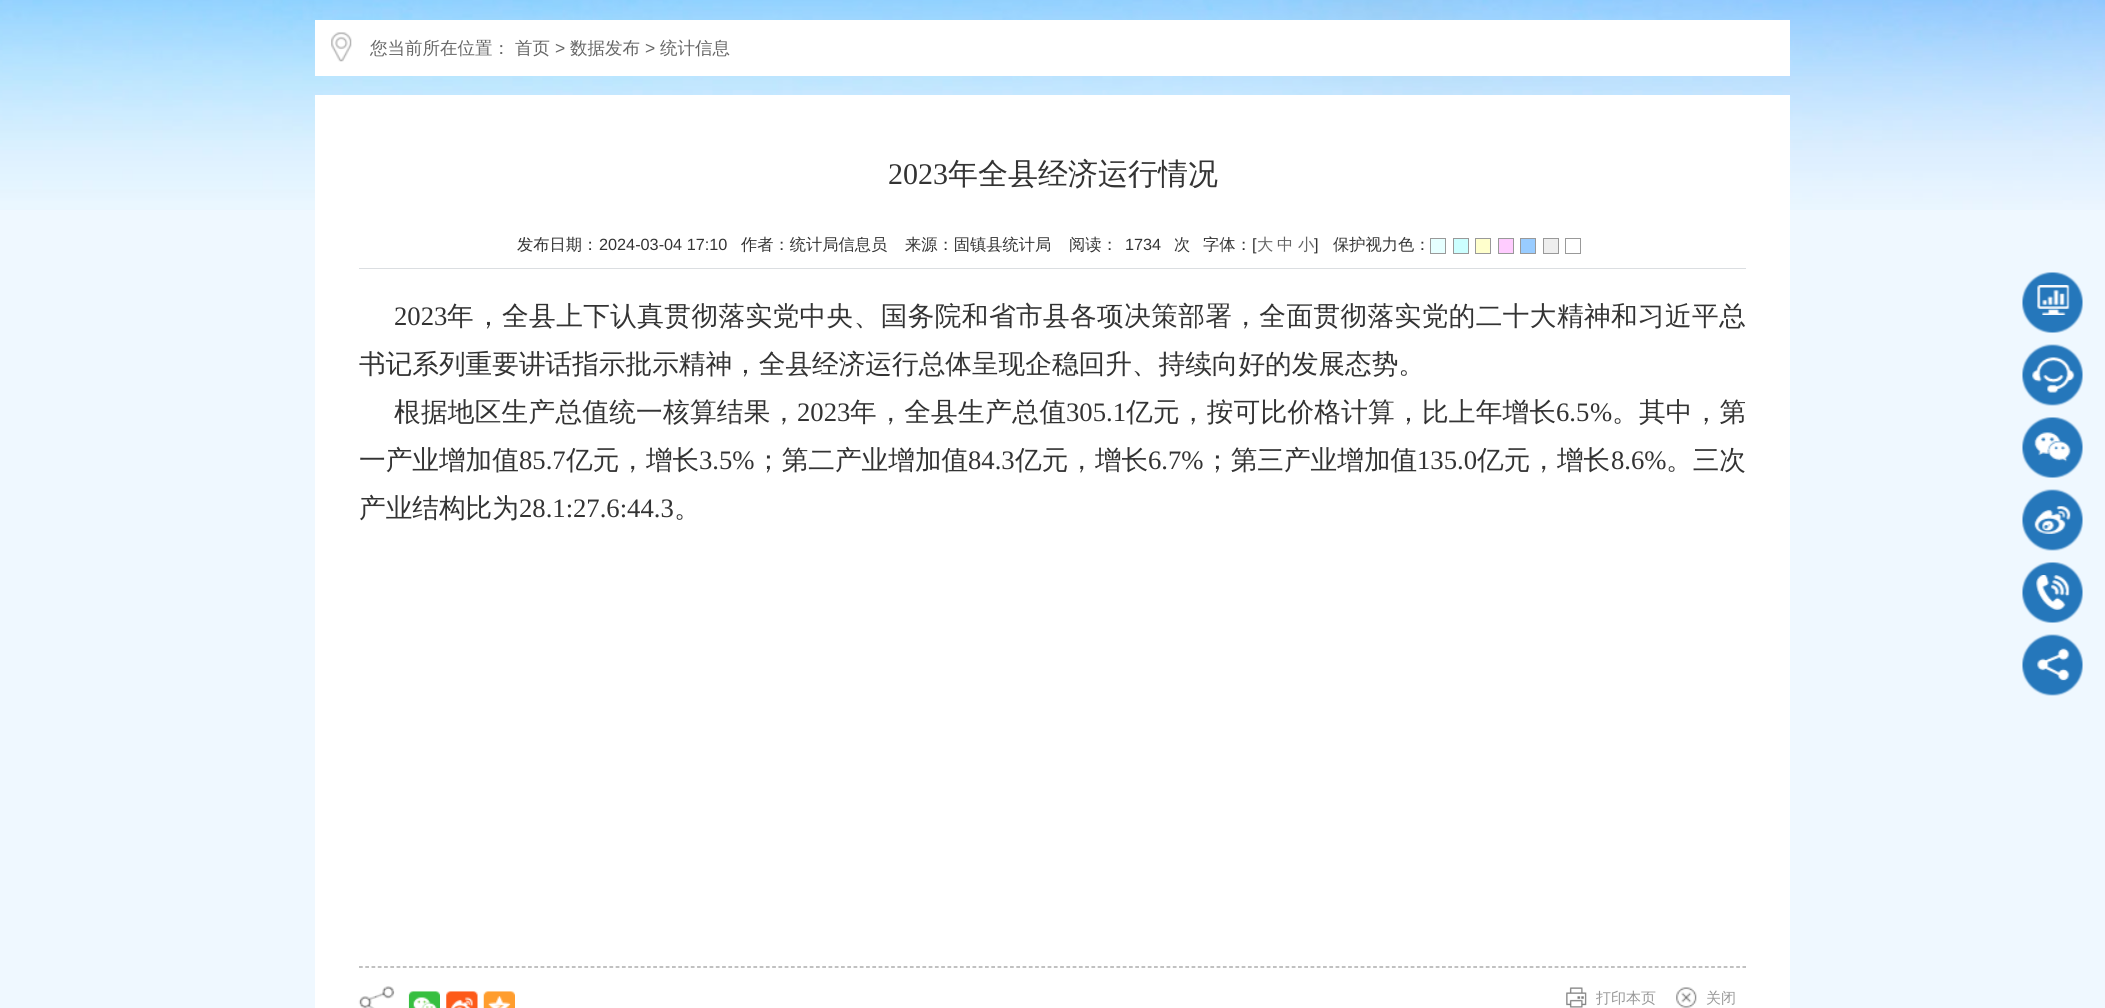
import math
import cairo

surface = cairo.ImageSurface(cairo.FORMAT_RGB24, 2105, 1008)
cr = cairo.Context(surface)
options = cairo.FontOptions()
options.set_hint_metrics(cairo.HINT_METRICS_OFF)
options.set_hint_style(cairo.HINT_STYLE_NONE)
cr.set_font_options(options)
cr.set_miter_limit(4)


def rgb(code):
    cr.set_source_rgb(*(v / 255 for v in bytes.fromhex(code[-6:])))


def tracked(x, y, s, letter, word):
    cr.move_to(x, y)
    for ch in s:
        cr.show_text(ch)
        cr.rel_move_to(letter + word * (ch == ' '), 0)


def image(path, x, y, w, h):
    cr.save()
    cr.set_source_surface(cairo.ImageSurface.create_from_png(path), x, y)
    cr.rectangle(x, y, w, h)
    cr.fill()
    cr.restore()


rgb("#eff8ff")
cr.paint()
image("img/1.png", 0, 0, 2105, 210)
rgb("#ffffff")
cr.rectangle(315, 20, 1475, 56)
cr.fill()
image("img/2.png", 331, 32, 21, 30)
cr.rectangle(315, 95, 1475, 913)
cr.fill()
rgb("#dbdee1")
cr.rectangle(359, 268, 1387, 1)
cr.fill()
rgb("#e6ffff")
cr.rectangle(1430.5, 238.5, 15, 15)
cr.fill_preserve()
rgb("#999999")
cr.set_line_width(1)
cr.stroke()
rgb("#ccffff")
cr.rectangle(1453.5, 238.5, 15, 15)
cr.fill_preserve()
rgb("#999999")
cr.stroke()
rgb("#ffffcc")
cr.rectangle(1475.5, 238.5, 15, 15)
cr.fill_preserve()
rgb("#999999")
cr.stroke()
rgb("#ffccff")
cr.rectangle(1498.5, 238.5, 15, 15)
cr.fill_preserve()
rgb("#999999")
cr.stroke()
rgb("#99ccff")
cr.rectangle(1520.5, 238.5, 15, 15)
cr.fill_preserve()
rgb("#999999")
cr.stroke()
rgb("#eeeeee")
cr.rectangle(1543.5, 238.5, 15, 15)
cr.fill_preserve()
rgb("#999999")
cr.stroke()
cr.rectangle(1565.5, 238.5, 15, 15)
cr.stroke()
cr.new_path()
cr.move_to(359, 967)
cr.line_to(1746, 967)
cr.set_line_width(1.2)
cr.set_dash([3.75, 2.51])
cr.stroke()
image("img/3.png", 358, 986, 37, 22)
image("img/4.png", 408, 991, 32, 17)
image("img/5.png", 446, 991, 32, 17)
image("img/6.png", 483, 991, 32, 17)
image("img/7.png", 1566, 987, 21, 21)
image("img/8.png", 1676, 987, 21, 21)
image("img/9.png", 2022, 272, 61, 61)
image("img/10.png", 2037, 285, 33, 30)
image("img/11.png", 2022, 344, 61, 62)
image("img/12.png", 2032, 357, 43, 36)
image("img/13.png", 2022, 417, 61, 61)
image("img/14.png", 2034, 432, 37, 30)
image("img/11.png", 2022, 489, 61, 62)
image("img/15.png", 2034, 506, 37, 28)
image("img/13.png", 2022, 562, 61, 61)
image("img/16.png", 2036, 575, 34, 35)
image("img/11.png", 2022, 634, 61, 62)
image("img/17.png", 2037, 648, 33, 33)
cr.select_font_face("WenQuanYi Zen Hei Medium")
cr.set_font_size(17.5)
rgb("#666666")
cr.move_to(370, 54)
cr.show_text("您当前所在位置：")
cr.move_to(515, 54)
cr.show_text("首页")
cr.select_font_face("Liberation Sans")
cr.move_to(555, 54)
cr.show_text(">")
cr.select_font_face("WenQuanYi Zen Hei Medium")
cr.move_to(570, 54)
cr.show_text("数据发布")
cr.select_font_face("Liberation Sans")
cr.move_to(645, 54)
cr.show_text(">")
cr.select_font_face("WenQuanYi Zen Hei Medium")
cr.move_to(660, 54)
cr.show_text("统计信息")
cr.select_font_face("Liberation Serif")
cr.set_font_size(30)
rgb("#333333")
cr.move_to(888, 184)
cr.show_text("2023")
cr.select_font_face("WenQuanYi Zen Hei Medium")
cr.move_to(948, 184)
cr.show_text("年全县经济运行情况")
cr.set_font_size(16.25)
cr.move_to(517, 250)
cr.show_text("发布日期：")
cr.select_font_face("Liberation Sans")
cr.move_to(599, 250)
cr.show_text("2024-03-04 17:10")
cr.select_font_face("WenQuanYi Zen Hei Medium")
for x, y, s in [
    (741, 250, "作者：统计局信息员"),
    (905, 250, "来源：固镇县统计局"),
    (1069, 250, "阅读："),
]:
    cr.move_to(x, y)
    cr.show_text(s)
cr.select_font_face("Liberation Sans")
cr.move_to(1125, 250)
cr.show_text("1734")
cr.select_font_face("WenQuanYi Zen Hei Medium")
cr.move_to(1174, 250)
cr.show_text("次")
cr.move_to(1203, 250)
cr.show_text("字体：")
cr.select_font_face("Liberation Sans")
cr.move_to(1252, 250)
cr.show_text("[")
cr.select_font_face("WenQuanYi Zen Hei Medium")
rgb("#666666")
for x, y, s in [
    (1257, 250, "大"),
    (1277, 250, "中"),
    (1298, 250, "小"),
]:
    cr.move_to(x, y)
    cr.show_text(s)
cr.select_font_face("Liberation Sans")
rgb("#333333")
cr.move_to(1314, 250)
cr.show_text("]")
cr.select_font_face("WenQuanYi Zen Hei Medium")
cr.move_to(1333, 250)
cr.show_text("保护视力色：")
cr.select_font_face("Liberation Serif")
cr.set_font_size(26.65)
cr.move_to(394, 325)
cr.show_text("2023")
cr.select_font_face("WenQuanYi Zen Hei Medium")
cr.move_to(447, 325)
cr.show_text("年")
tracked(475, 325, "，全县上下认真贯彻落实党中央、国务院和省市县各项决策部署，全面贯彻落实党的二十大精神和习近平总", 0.4, 0)
cr.move_to(359, 373)
cr.show_text("书记系列重要讲话指示批示精神，全县经济运行总体呈现企稳回升、持续向好的发展态势。")
tracked(394, 421, "根据地区生产总值统一核算结果，", 0.25, 0)
cr.select_font_face("Liberation Serif")
cr.move_to(797, 421)
cr.show_text("2023")
cr.select_font_face("WenQuanYi Zen Hei Medium")
tracked(850, 421, "年，全", 0.5, 0)
cr.move_to(931, 421)
cr.show_text("县")
tracked(958, 421, "生产总值", 0.5, 0)
cr.select_font_face("Liberation Serif")
cr.move_to(1066, 421)
cr.show_text("305.1")
cr.select_font_face("WenQuanYi Zen Hei Medium")
tracked(1126, 421, "亿元，按可比价格计算，比上年增长", 0.25, 0)
cr.select_font_face("Liberation Serif")
cr.move_to(1556, 421)
cr.show_text("6.5")
tracked(1590, 421, "%", 0.25, 0)
cr.select_font_face("WenQuanYi Zen Hei Medium")
tracked(1612, 421, "。其中，第", 0.25, 0)
cr.move_to(359, 469)
cr.show_text("一产业增加值")
cr.select_font_face("Liberation Serif")
cr.move_to(519, 469)
cr.show_text("85.7")
cr.select_font_face("WenQuanYi Zen Hei Medium")
cr.move_to(566, 469)
cr.show_text("亿元，增长")
cr.select_font_face("Liberation Serif")
cr.move_to(699, 469)
cr.show_text("3.5%")
cr.select_font_face("WenQuanYi Zen Hei Medium")
cr.move_to(755, 469)
cr.show_text("；第二产业增加值")
cr.select_font_face("Liberation Serif")
cr.move_to(968, 469)
cr.show_text("84.3")
cr.select_font_face("WenQuanYi Zen Hei Medium")
cr.move_to(1015, 469)
cr.show_text("亿元，增长")
cr.select_font_face("Liberation Serif")
cr.move_to(1148, 469)
cr.show_text("6.7%")
cr.select_font_face("WenQuanYi Zen Hei Medium")
cr.move_to(1204, 469)
cr.show_text("；第三产业增加值")
cr.select_font_face("Liberation Serif")
cr.move_to(1417, 469)
cr.show_text("135.0")
cr.select_font_face("WenQuanYi Zen Hei Medium")
cr.move_to(1477, 469)
cr.show_text("亿元，增长")
cr.select_font_face("Liberation Serif")
cr.move_to(1611, 469)
cr.show_text("8.6%")
cr.select_font_face("WenQuanYi Zen Hei Medium")
cr.move_to(1666, 469)
cr.show_text("。三次")
cr.move_to(359, 517)
cr.show_text("产业结构比为")
cr.select_font_face("Liberation Serif")
cr.move_to(519, 517)
cr.show_text("28.1:27.6:44.3")
cr.select_font_face("WenQuanYi Zen Hei Medium")
cr.move_to(674, 517)
cr.show_text("。")
cr.set_font_size(15)
rgb("#999999")
cr.move_to(1596, 1003)
cr.show_text("打印本页")
cr.move_to(1706, 1003)
cr.show_text("关闭")
surface.write_to_png("page.png")
